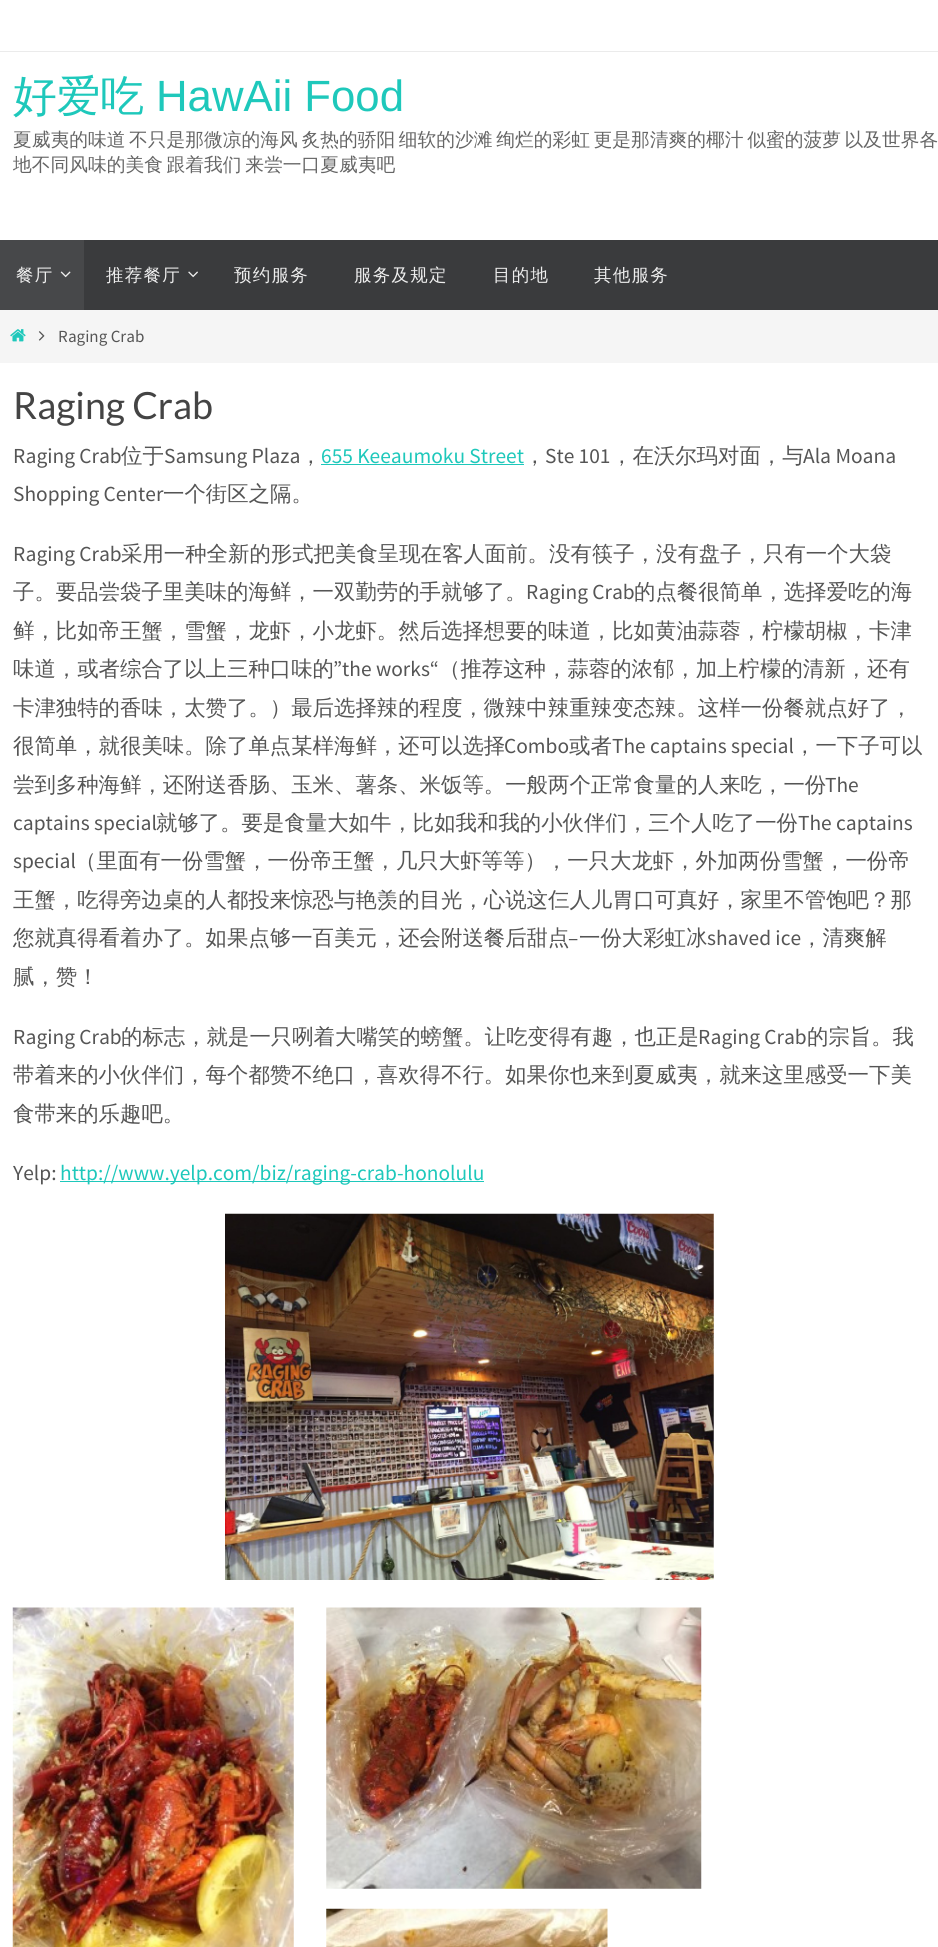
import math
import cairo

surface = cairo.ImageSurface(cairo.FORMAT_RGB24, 938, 1947)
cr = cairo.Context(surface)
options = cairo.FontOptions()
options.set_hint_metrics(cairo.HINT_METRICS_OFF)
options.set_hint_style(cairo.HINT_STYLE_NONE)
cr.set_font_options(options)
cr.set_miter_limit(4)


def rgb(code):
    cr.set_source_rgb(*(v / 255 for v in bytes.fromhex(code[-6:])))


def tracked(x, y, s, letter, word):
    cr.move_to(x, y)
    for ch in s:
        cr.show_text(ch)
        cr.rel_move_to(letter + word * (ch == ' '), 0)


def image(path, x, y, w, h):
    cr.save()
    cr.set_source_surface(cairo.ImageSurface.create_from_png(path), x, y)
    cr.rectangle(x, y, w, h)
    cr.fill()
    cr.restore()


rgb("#ffffff")
cr.paint()
for x, y, w, h, color in [
    (0, 51, 938, 1, "#ebebeb"),
    (84, 240, 854, 70, "#3a3b3d"),
    (0, 240, 84, 70, "#47484a"),
]:
    rgb(color)
    cr.rectangle(x, y, w, h)
    cr.fill()
image("img/1.png", 60, 271, 11, 7)
image("img/2.png", 188, 271, 10, 7)
rgb("#f5f5f5")
cr.rectangle(0, 310, 938, 53)
cr.fill()
image("img/3.png", 10, 329, 16, 13)
image("img/4.png", 38, 331, 7, 10)
rgb("#1ec8bb")
cr.rectangle(321, 464, 203, 1)
cr.fill()
cr.rectangle(60, 1181, 424, 1)
cr.fill()
image("img/5.png", 225, 1213, 489, 367)
image("img/6.png", 12, 1607, 282, 340)
image("img/7.png", 326, 1607, 376, 282)
image("img/8.png", 326, 1908, 282, 39)
cr.select_font_face("WenQuanYi Zen Hei Medium")
cr.set_font_size(43.75)
cr.move_to(13, 111)
cr.show_text("好爱吃")
cr.select_font_face("Liberation Sans")
cr.move_to(156, 111)
cr.show_text("HawAii Food")
cr.select_font_face("WenQuanYi Zen Hei Medium")
cr.set_font_size(18.75)
rgb("#666666")
tracked(13, 146, "夏威夷的味道 不只是那微凉的海风 炙热的骄阳 细软的沙滩 绚烂的彩虹 更是那清爽的椰汁 似蜜的菠萝 以及世界各", 0, -2)
tracked(13, 171, "地不同风味的美食 跟着我们 来尝一口夏威夷吧", 0, -2)
cr.set_font_size(17.5)
rgb("#eeeeee")
for x, y, s in [
    (16, 281, "餐厅"),
    (106, 281, "推荐餐厅"),
    (234, 281, "预约服务"),
    (354, 281, "服务及规定"),
    (493, 281, "目的地"),
    (594, 281, "其他服务"),
]:
    tracked(x, y, s, 1.25, 0)
cr.select_font_face("Source Sans Pro")
cr.set_font_size(17)
rgb("#555555")
cr.move_to(58, 342)
cr.show_text("Raging Crab")
cr.select_font_face("Lato")
cr.set_font_size(37.5)
rgb("#444444")
cr.move_to(13, 419)
cr.show_text("Raging Crab")
cr.select_font_face("Source Sans Pro")
cr.set_font_size(21.4)
rgb("#555555")
cr.move_to(13, 463)
cr.show_text("Raging Crab")
cr.select_font_face("WenQuanYi Zen Hei Medium")
cr.move_to(121, 463)
cr.show_text("位于")
cr.select_font_face("Source Sans Pro")
cr.move_to(164, 463)
cr.show_text("Samsung Plaza")
cr.select_font_face("WenQuanYi Zen Hei Medium")
cr.move_to(300, 463)
cr.show_text("，")
cr.select_font_face("Source Sans Pro")
rgb("#1ec8bb")
cr.move_to(321, 463)
cr.show_text("655 Keeaumoku Street")
cr.select_font_face("WenQuanYi Zen Hei Medium")
rgb("#555555")
cr.move_to(524, 463)
cr.show_text("，")
cr.select_font_face("Source Sans Pro")
cr.move_to(545, 463)
cr.show_text("Ste 101")
cr.select_font_face("WenQuanYi Zen Hei Medium")
cr.move_to(611, 463)
cr.show_text("，在沃尔玛对面，与")
cr.select_font_face("Source Sans Pro")
cr.move_to(803, 463)
cr.show_text("Ala Moana")
cr.move_to(13, 501)
cr.show_text("Shopping Center")
cr.select_font_face("WenQuanYi Zen Hei Medium")
cr.move_to(163, 501)
cr.show_text("一个街区之隔。")
cr.select_font_face("Source Sans Pro")
cr.move_to(13, 561)
cr.show_text("Raging Crab")
cr.select_font_face("WenQuanYi Zen Hei Medium")
cr.move_to(121, 561)
cr.show_text("采用一种全新的形式把美食呈现在客人面前。没有筷子，没有盘子，只有一个大袋")
cr.move_to(13, 599)
cr.show_text("子。要品尝袋子里美味的海鲜，一双勤劳的手就够了。")
cr.select_font_face("Source Sans Pro")
cr.move_to(526, 599)
cr.show_text("Raging Crab")
cr.select_font_face("WenQuanYi Zen Hei Medium")
for x, y, s in [
    (634, 599, "的点餐很简单，选择爱吃的海"),
    (13, 638, "鲜，比如帝王蟹，雪蟹，龙虾，小龙虾。然后选择想要的味道，比如黄油蒜蓉，柠檬胡椒，卡津"),
    (13, 676, "味道，或者综合了以上三种口味的"),
]:
    cr.move_to(x, y)
    cr.show_text(s)
cr.select_font_face("Source Sans Pro")
cr.move_to(333, 676)
cr.show_text("”the works“")
cr.select_font_face("WenQuanYi Zen Hei Medium")
for x, y, s in [
    (439, 676, "（推荐这种，蒜蓉的浓郁，加上柠檬的清新，还有"),
    (13, 715, "卡津独特的香味，太赞了。）最后选择辣的程度，微辣中辣重辣变态辣。这样一份餐就点好了，"),
    (13, 753, "很简单，就很美味。除了单点某样海鲜，还可以选择"),
]:
    cr.move_to(x, y)
    cr.show_text(s)
cr.select_font_face("Source Sans Pro")
cr.move_to(504, 753)
cr.show_text("Combo")
cr.select_font_face("WenQuanYi Zen Hei Medium")
cr.move_to(569, 753)
cr.show_text("或者")
cr.select_font_face("Source Sans Pro")
cr.move_to(612, 753)
cr.show_text("The captains special")
cr.select_font_face("WenQuanYi Zen Hei Medium")
cr.move_to(794, 753)
cr.show_text("，一下子可以")
cr.move_to(13, 792)
cr.show_text("尝到多种海鲜，还附送香肠、玉米、薯条、米饭等。一般两个正常食量的人来吃，一份")
cr.select_font_face("Source Sans Pro")
cr.move_to(825, 792)
cr.show_text("The")
cr.move_to(13, 830)
cr.show_text("captains special")
cr.select_font_face("WenQuanYi Zen Hei Medium")
cr.move_to(156, 830)
cr.show_text("就够了。要是食量大如牛，比如我和我的小伙伴们，三个人吃了一份")
cr.select_font_face("Source Sans Pro")
cr.move_to(798, 830)
cr.show_text("The captains")
cr.move_to(13, 868)
cr.show_text("special")
cr.select_font_face("WenQuanYi Zen Hei Medium")
for x, y, s in [
    (75, 868, "（里面有一份雪蟹，一份帝王蟹，几只大虾等等），一只大龙虾，外加两份雪蟹，一份帝"),
    (13, 907, "王蟹，吃得旁边桌的人都投来惊恐与艳羡的目光，心说这仨人儿胃口可真好，家里不管饱吧？那"),
    (13, 945, "您就真得看着办了。如果点够一百美元，还会附送餐后甜点"),
]:
    cr.move_to(x, y)
    cr.show_text(s)
cr.select_font_face("Source Sans Pro")
cr.move_to(568, 945)
cr.show_text("–")
cr.select_font_face("WenQuanYi Zen Hei Medium")
cr.move_to(579, 945)
cr.show_text("一份大彩虹冰")
cr.select_font_face("Source Sans Pro")
cr.move_to(707, 945)
cr.show_text("shaved ice")
cr.select_font_face("WenQuanYi Zen Hei Medium")
cr.move_to(801, 945)
cr.show_text("，清爽解")
cr.move_to(13, 984)
cr.show_text("腻，赞！")
cr.select_font_face("Source Sans Pro")
cr.move_to(13, 1044)
cr.show_text("Raging Crab")
cr.select_font_face("WenQuanYi Zen Hei Medium")
cr.move_to(121, 1044)
cr.show_text("的标志，就是一只咧着大嘴笑的螃蟹。让吃变得有趣，也正是")
cr.select_font_face("Source Sans Pro")
cr.move_to(698, 1044)
cr.show_text("Raging Crab")
cr.select_font_face("WenQuanYi Zen Hei Medium")
for x, y, s in [
    (807, 1044, "的宗旨。我"),
    (13, 1082, "带着来的小伙伴们，每个都赞不绝口，喜欢得不行。如果你也来到夏威夷，就来这里感受一下美"),
    (13, 1121, "食带来的乐趣吧。"),
]:
    cr.move_to(x, y)
    cr.show_text(s)
cr.select_font_face("Source Sans Pro")
cr.move_to(13, 1180)
cr.show_text("Yelp:")
rgb("#1ec8bb")
cr.move_to(60, 1180)
cr.show_text("http://www.yelp.com/biz/raging-crab-honolulu")
surface.write_to_png("page.png")
